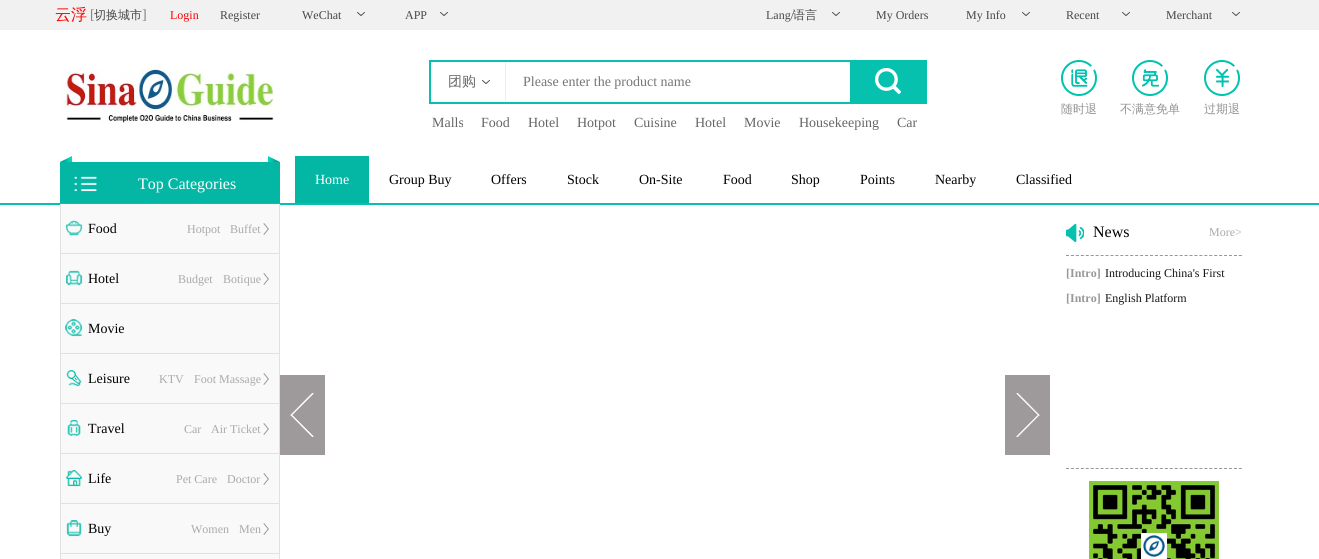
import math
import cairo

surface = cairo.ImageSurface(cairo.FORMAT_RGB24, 1319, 559)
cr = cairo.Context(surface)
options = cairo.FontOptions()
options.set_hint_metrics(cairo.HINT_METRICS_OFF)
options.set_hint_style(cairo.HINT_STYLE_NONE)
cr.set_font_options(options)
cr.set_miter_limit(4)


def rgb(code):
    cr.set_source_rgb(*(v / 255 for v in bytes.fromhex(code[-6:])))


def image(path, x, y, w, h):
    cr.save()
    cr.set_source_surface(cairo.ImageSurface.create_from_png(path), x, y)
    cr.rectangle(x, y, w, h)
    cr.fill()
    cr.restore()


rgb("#ffffff")
cr.paint()
rgb("#f1f1f1")
cr.rectangle(0, 0, 1319, 30)
cr.fill()
image("img/1.png", 357, 12, 8, 4)
image("img/1.png", 440, 12, 8, 4)
image("img/1.png", 832, 12, 8, 4)
image("img/1.png", 1022, 12, 8, 4)
image("img/1.png", 1122, 12, 8, 4)
image("img/1.png", 1232, 12, 8, 4)
image("img/2.png", 60, 68, 214, 56)
cr.rectangle(430, 61, 496, 42)
rgb("#06c1ae")
cr.stroke()
rgb("#f0eceb")
cr.rectangle(505, 62, 1, 39)
cr.fill()
image("img/3.png", 482, 80, 8, 4)
rgb("#06c1ae")
cr.rectangle(850, 62, 75, 40)
cr.fill()
image("img/4.png", 875, 68, 26, 26)
image("img/5.png", 1061, 60, 36, 36)
image("img/6.png", 1132, 60, 36, 36)
image("img/7.png", 1204, 60, 36, 36)
image("img/8.png", 60, 156, 220, 47)
image("img/9.png", 74, 176, 23, 16)
for x, y, w, h, color in [
    (0, 203, 1319, 2, "#06c1ae"),
    (61, 204, 218, 355, "#f9f9f9"),
    (279, 204, 1, 355, "#e1e1e1"),
    (60, 204, 1, 355, "#e1e1e1"),
    (61, 253, 218, 1, "#e1e1e1"),
]:
    rgb(color)
    cr.rectangle(x, y, w, h)
    cr.fill()
image("img/10.png", 66, 220, 17, 16)
image("img/11.png", 263, 223, 6, 12)
cr.rectangle(61, 303, 218, 1)
cr.fill()
image("img/12.png", 66, 270, 17, 16)
image("img/11.png", 263, 273, 6, 12)
cr.rectangle(61, 353, 218, 1)
cr.fill()
image("img/13.png", 65, 319, 18, 18)
cr.rectangle(61, 403, 218, 1)
cr.fill()
image("img/14.png", 66, 370, 16, 17)
image("img/11.png", 263, 373, 6, 12)
cr.rectangle(61, 453, 218, 1)
cr.fill()
image("img/15.png", 67, 420, 14, 17)
image("img/11.png", 263, 423, 6, 12)
cr.rectangle(61, 503, 218, 1)
cr.fill()
image("img/16.png", 66, 470, 17, 17)
image("img/11.png", 263, 473, 6, 12)
cr.rectangle(61, 553, 218, 1)
cr.fill()
image("img/17.png", 66, 520, 16, 17)
image("img/11.png", 263, 523, 6, 12)
rgb("#04b7a5")
cr.rectangle(295, 156, 74, 47)
cr.fill()
image("img/18.png", 1066, 224, 18, 18)
cr.new_path()
cr.move_to(1066, 255.5)
cr.line_to(1242, 255.5)
rgb("#989898")
cr.set_line_width(1)
cr.set_dash([3, 1.94])
cr.stroke()
cr.new_path()
cr.move_to(1066, 468.5)
cr.line_to(1242, 468.5)
cr.stroke()
image("img/19.png", 1089, 481, 130, 78)
image("img/20.png", 280, 375, 45, 80)
image("img/21.png", 1005, 375, 45, 80)
cr.select_font_face("WenQuanYi Zen Hei Medium")
cr.set_font_size(16)
rgb("#ff0000")
cr.move_to(55, 20)
cr.show_text("云浮")
cr.select_font_face("Liberation Serif")
cr.set_font_size(14)
rgb("#7d7d7d")
cr.move_to(90, 19)
cr.show_text("[")
cr.select_font_face("WenQuanYi Zen Hei Medium")
cr.set_font_size(12)
rgb("#474747")
cr.move_to(94, 19)
cr.show_text("切换城市")
cr.select_font_face("Liberation Serif")
cr.set_font_size(14)
rgb("#7d7d7d")
cr.move_to(142, 19)
cr.show_text("]")
cr.set_font_size(12)
rgb("#ff0000")
cr.move_to(170, 19)
cr.show_text("Login")
rgb("#474747")
for x, y, s in [
    (220, 19, "Register"),
    (302, 19, "WeChat"),
    (405, 19, "APP"),
    (766, 19, "Lang/"),
]:
    cr.move_to(x, y)
    cr.show_text(s)
cr.select_font_face("WenQuanYi Zen Hei Medium")
cr.move_to(793, 19)
cr.show_text("语言")
cr.select_font_face("Liberation Serif")
for x, y, s in [
    (876, 19, "My Orders"),
    (966, 19, "My Info"),
    (1066, 19, "Recent"),
    (1166, 19, "Merchant"),
]:
    cr.move_to(x, y)
    cr.show_text(s)
cr.select_font_face("WenQuanYi Zen Hei Medium")
cr.set_font_size(14)
rgb("#666666")
cr.move_to(448, 86)
cr.show_text("团购")
cr.select_font_face("Liberation Serif")
rgb("#757575")
cr.move_to(523, 86)
cr.show_text("Please enter the product name")
rgb("#666666")
for x, y, s in [
    (432, 127, "Malls"),
    (481, 127, "Food"),
    (528, 127, "Hotel"),
    (577, 127, "Hotpot"),
    (634, 127, "Cuisine"),
    (695, 127, "Hotel"),
    (744, 127, "Movie"),
    (799, 127, "Housekeeping"),
    (897, 127, "Car"),
]:
    cr.move_to(x, y)
    cr.show_text(s)
cr.select_font_face("WenQuanYi Zen Hei Medium")
cr.set_font_size(12)
rgb("#929292")
for x, y, s in [
    (1061, 113, "随时退"),
    (1120, 113, "不满意免单"),
    (1204, 113, "过期退"),
]:
    cr.move_to(x, y)
    cr.show_text(s)
cr.select_font_face("Liberation Serif")
cr.set_font_size(16)
rgb("#ffffff")
cr.move_to(138, 189)
cr.show_text("Top Categories")
cr.set_font_size(14)
rgb("#000000")
cr.move_to(88, 233)
cr.show_text("Food")
cr.set_font_size(12)
rgb("#aaaaaa")
cr.move_to(187, 233)
cr.show_text("Hotpot")
cr.move_to(230, 233)
cr.show_text("Buffet")
cr.set_font_size(14)
rgb("#000000")
cr.move_to(88, 283)
cr.show_text("Hotel")
cr.set_font_size(12)
rgb("#aaaaaa")
cr.move_to(178, 283)
cr.show_text("Budget")
cr.move_to(223, 283)
cr.show_text("Botique")
cr.set_font_size(14)
rgb("#000000")
cr.move_to(88, 333)
cr.show_text("Movie")
cr.move_to(88, 383)
cr.show_text("Leisure")
cr.set_font_size(12)
rgb("#aaaaaa")
cr.move_to(159, 383)
cr.show_text("KTV")
cr.move_to(194, 383)
cr.show_text("Foot Massage")
cr.set_font_size(14)
rgb("#000000")
cr.move_to(88, 433)
cr.show_text("Travel")
cr.set_font_size(12)
rgb("#aaaaaa")
cr.move_to(184, 433)
cr.show_text("Car")
cr.move_to(211, 433)
cr.show_text("Air Ticket")
cr.set_font_size(14)
rgb("#000000")
cr.move_to(88, 483)
cr.show_text("Life")
cr.set_font_size(12)
rgb("#aaaaaa")
cr.move_to(176, 483)
cr.show_text("Pet Care")
cr.move_to(227, 483)
cr.show_text("Doctor")
cr.set_font_size(14)
rgb("#000000")
cr.move_to(88, 533)
cr.show_text("Buy")
cr.set_font_size(12)
rgb("#aaaaaa")
cr.move_to(191, 533)
cr.show_text("Women")
cr.move_to(239, 533)
cr.show_text("Men")
cr.set_font_size(14)
rgb("#ffffff")
cr.move_to(315, 184)
cr.show_text("Home")
rgb("#000000")
for x, y, s in [
    (389, 184, "Group Buy"),
    (491, 184, "Offers"),
    (567, 184, "Stock"),
    (639, 184, "On-Site"),
    (723, 184, "Food"),
    (791, 184, "Shop"),
    (860, 184, "Points"),
    (935, 184, "Nearby"),
    (1016, 184, "Classified"),
]:
    cr.move_to(x, y)
    cr.show_text(s)
cr.set_font_size(16)
cr.move_to(1093, 237)
cr.show_text("News")
cr.set_font_size(12)
rgb("#aaaaaa")
cr.move_to(1209, 236)
cr.show_text("More>")
cr.select_font_face("Liberation Serif", cairo.FONT_SLANT_NORMAL, cairo.FONT_WEIGHT_BOLD)
rgb("#989898")
cr.move_to(1066, 277)
cr.show_text("[Intro]")
cr.select_font_face("Liberation Serif")
rgb("#151515")
cr.move_to(1105, 277)
cr.show_text("Introducing China's First")
cr.select_font_face("Liberation Serif", cairo.FONT_SLANT_NORMAL, cairo.FONT_WEIGHT_BOLD)
rgb("#989898")
cr.move_to(1066, 302)
cr.show_text("[Intro]")
cr.select_font_face("Liberation Serif")
rgb("#151515")
cr.move_to(1105, 302)
cr.show_text("English Platform")
surface.write_to_png("page.png")
